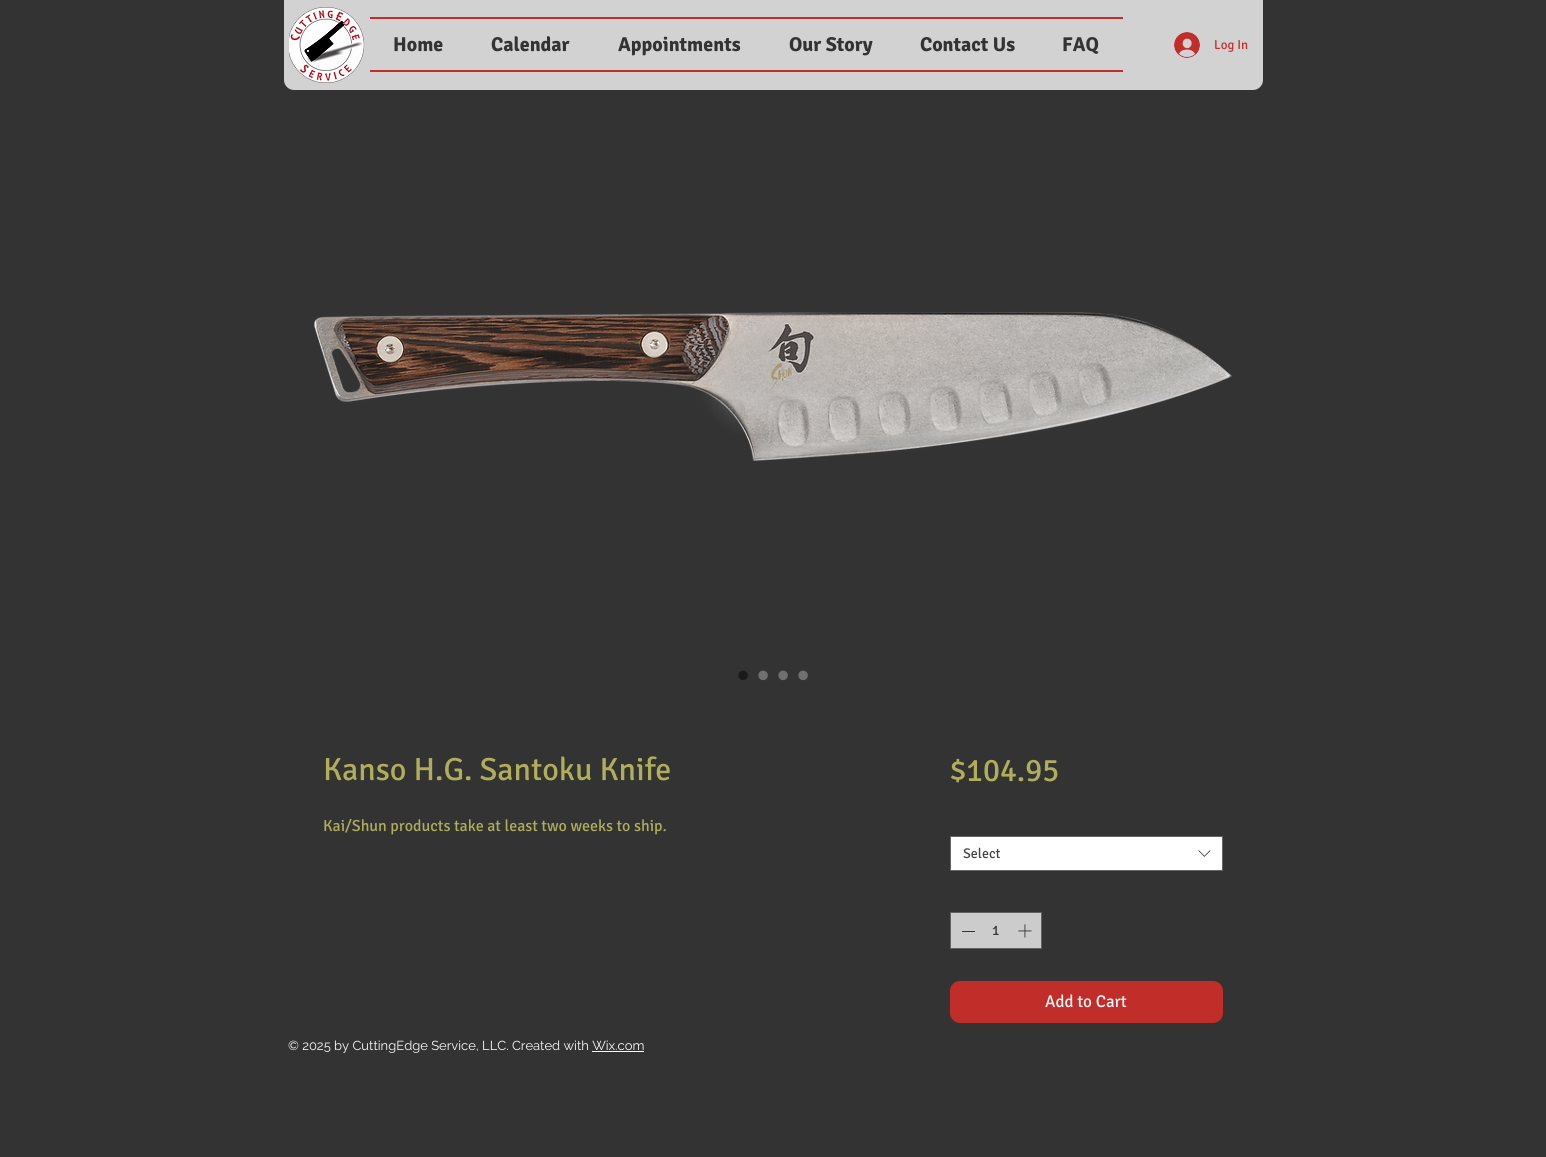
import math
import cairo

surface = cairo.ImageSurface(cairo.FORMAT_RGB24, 1546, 1157)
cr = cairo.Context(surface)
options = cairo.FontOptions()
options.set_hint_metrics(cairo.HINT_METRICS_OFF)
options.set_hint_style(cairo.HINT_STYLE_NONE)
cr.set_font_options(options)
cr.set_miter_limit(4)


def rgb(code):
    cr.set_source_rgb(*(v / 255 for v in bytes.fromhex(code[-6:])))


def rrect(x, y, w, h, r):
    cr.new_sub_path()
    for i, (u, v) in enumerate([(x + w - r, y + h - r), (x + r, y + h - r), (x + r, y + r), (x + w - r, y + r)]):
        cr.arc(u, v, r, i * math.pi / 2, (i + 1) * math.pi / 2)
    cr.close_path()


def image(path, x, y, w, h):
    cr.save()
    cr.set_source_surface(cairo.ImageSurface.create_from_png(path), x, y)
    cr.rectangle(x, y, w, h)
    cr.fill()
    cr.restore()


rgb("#333333")
cr.paint()
rgb("#d2d2d2")
cr.new_path()
cr.move_to(284, 0)
cr.line_to(1263, 0)
cr.line_to(1263, 80)
cr.curve_to(1263, 85.5, 1258.5, 90, 1253, 90)
cr.line_to(294, 90)
cr.curve_to(288.5, 90, 284, 85.5, 284, 80)
cr.close_path()
cr.fill()
image("img/1.png", 289, 7, 76, 76)
rgb("#c12e2a")
cr.rectangle(370, 17, 753, 2)
cr.fill()
cr.rectangle(370, 70, 753, 2)
cr.fill()
image("img/2.png", 1174, 32, 26, 26)
image("img/3.png", 314, 312, 918, 149)
rgb("#ffffff")
cr.rectangle(950.5, 836.5, 272, 34)
cr.fill_preserve()
rgb("#666666")
cr.set_line_width(1)
cr.stroke()
image("img/4.png", 1198, 850, 13, 7)
rgb("#cccccc")
cr.rectangle(950.5, 912.5, 91, 36)
cr.fill_preserve()
rgb("#616161")
cr.stroke()
rgb("#333333")
cr.rectangle(962, 931, 13, 1)
cr.fill()
image("img/5.png", 1018, 924, 14, 14)
rgb("#c12e2a")
rrect(950, 981, 273, 42, 10)
cr.fill()
rgb("#fafafa")
cr.rectangle(592, 1051, 52, 1)
cr.fill()
cr.select_font_face("Signika", cairo.FONT_SLANT_NORMAL, cairo.FONT_WEIGHT_BOLD)
cr.set_font_size(20)
rgb("#333333")
for x, y, s in [
    (393, 51, "Home"),
    (491, 51, "Calendar"),
    (618, 51, "Appointments"),
    (789, 51, "Our Story"),
    (920, 51, "Contact Us"),
    (1062, 51, "FAQ"),
]:
    cr.move_to(x, y)
    cr.show_text(s)
cr.select_font_face("Signika")
cr.set_font_size(13)
rgb("#c12e2a")
cr.move_to(1214, 49)
cr.show_text("Log In")
cr.select_font_face("Liberation Sans")
cr.set_font_size(35)
rgb("#1a1a1a")
cr.move_to(737, 687)
cr.show_text("•")
rgb("#707070")
for x, y, s in [
    (757, 687, "•"),
    (777, 687, "•"),
    (797, 687, "•"),
]:
    cr.move_to(x, y)
    cr.show_text(s)
cr.select_font_face("Signika")
cr.set_font_size(32)
rgb("#b0ae5a")
cr.move_to(323, 780)
cr.show_text("Kanso H.G. Santoku Knife")
cr.set_font_size(16)
cr.move_to(323, 831)
cr.show_text("Kai/Shun products take at least two weeks to ship.")
cr.set_font_size(32)
cr.move_to(950, 781)
cr.show_text("$104.95")
cr.set_font_size(14)
rgb("#444444")
cr.move_to(963, 858)
cr.show_text("Select")
rgb("#333333")
cr.move_to(992, 935)
cr.show_text("1")
cr.set_font_size(17)
rgb("#fafafa")
cr.move_to(1045, 1007)
cr.show_text("Add to Cart")
cr.select_font_face("Raleway")
cr.set_font_size(13)
cr.move_to(288, 1050)
cr.show_text("© 2025 by CuttingEdge Service, LLC. Created with Wix.com")
surface.write_to_png("page.png")
